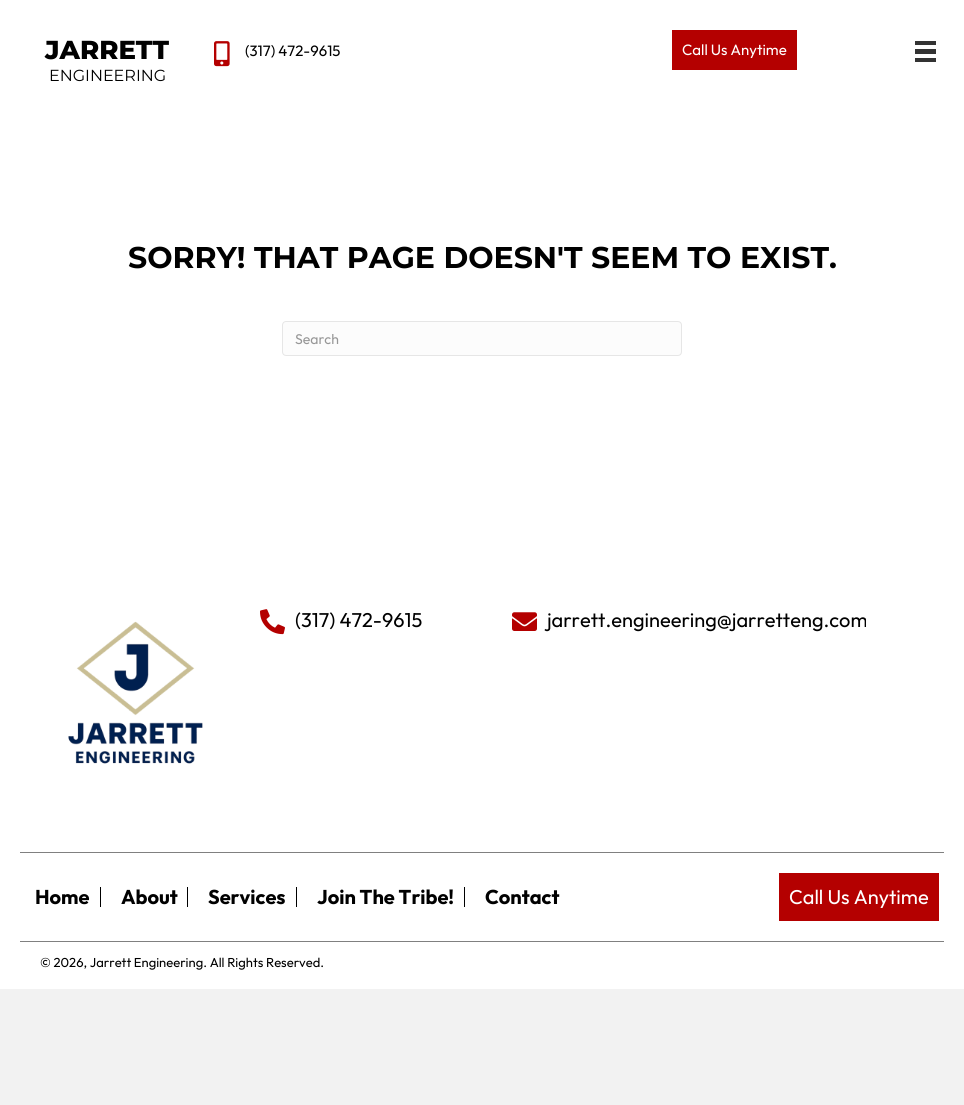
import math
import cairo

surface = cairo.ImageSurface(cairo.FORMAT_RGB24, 964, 1105)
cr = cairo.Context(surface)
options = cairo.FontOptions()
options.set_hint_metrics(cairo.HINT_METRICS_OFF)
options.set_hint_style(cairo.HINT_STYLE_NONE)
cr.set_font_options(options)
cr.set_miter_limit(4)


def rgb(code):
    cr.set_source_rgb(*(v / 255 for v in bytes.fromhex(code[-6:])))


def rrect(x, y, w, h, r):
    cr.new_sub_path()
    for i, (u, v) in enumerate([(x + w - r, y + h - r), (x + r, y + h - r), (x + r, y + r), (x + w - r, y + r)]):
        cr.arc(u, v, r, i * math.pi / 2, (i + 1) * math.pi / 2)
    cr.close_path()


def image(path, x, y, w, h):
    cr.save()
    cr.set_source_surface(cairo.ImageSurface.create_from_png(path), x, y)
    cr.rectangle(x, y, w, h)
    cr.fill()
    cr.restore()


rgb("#f2f2f2")
cr.paint()
rgb("#ffffff")
cr.rectangle(0, 0, 964, 989)
cr.fill()
image("img/1.png", 214, 41, 16, 26)
for x, y, w, h, color in [
    (672, 30, 125, 40, "#b40000"),
    (915, 41, 21, 4, "#333333"),
    (915, 49, 21, 5, "#333333"),
    (915, 58, 21, 4, "#333333"),
]:
    rgb(color)
    cr.rectangle(x, y, w, h)
    cr.fill()
rgb("#fcfcfc")
rrect(282.5, 321.5, 399, 34, 3.5)
cr.fill_preserve()
rgb("#e6e6e6")
cr.set_line_width(1)
cr.stroke()
image("img/2.png", 68, 621, 135, 143)
image("img/3.png", 260, 609, 25, 26)
image("img/4.png", 512, 612, 25, 19)
for x, y, w, h, color in [
    (20, 852, 924, 1, "#808080"),
    (20, 941, 924, 1, "#808080"),
    (100, 887, 1, 20, "#000000"),
    (187, 887, 1, 20, "#000000"),
    (296, 887, 1, 20, "#000000"),
    (464, 887, 1, 20, "#000000"),
    (779, 873, 160, 48, "#b40000"),
]:
    rgb(color)
    cr.rectangle(x, y, w, h)
    cr.fill()
cr.select_font_face("Montserrat ExtraBold")
cr.set_font_size(26)
rgb("#000000")
cr.move_to(45, 59)
cr.show_text("JARRETT")
cr.select_font_face("Montserrat")
cr.set_font_size(16)
cr.move_to(49, 81)
cr.show_text("ENGINEERING")
cr.select_font_face("Outfit")
cr.set_font_size(15)
cr.move_to(245, 56)
cr.show_text("(317) 472-9615")
rgb("#ffffff")
cr.move_to(682, 55)
cr.show_text("Call Us Anytime")
cr.select_font_face("Montserrat", cairo.FONT_SLANT_NORMAL, cairo.FONT_WEIGHT_BOLD)
cr.set_font_size(30)
rgb("#000000")
cr.move_to(128, 268)
cr.show_text("SORRY! THAT PAGE DOESN'T SEEM TO EXIST.")
cr.select_font_face("Outfit")
cr.set_font_size(14)
rgb("#979797")
cr.move_to(295, 344)
cr.show_text("Search")
cr.set_font_size(20)
rgb("#000000")
cr.move_to(295, 627)
cr.show_text("(317) 472-9615")
cr.move_to(547, 627)
cr.show_text("jarrett.engineering@jarretteng.com")
cr.select_font_face("Outfit", cairo.FONT_SLANT_NORMAL, cairo.FONT_WEIGHT_BOLD)
for x, y, s in [
    (35, 904, "Home"),
    (121, 904, "About"),
    (208, 904, "Services"),
    (317, 904, "Join The Tribe!"),
    (485, 904, "Contact"),
]:
    cr.move_to(x, y)
    cr.show_text(s)
cr.select_font_face("Outfit")
rgb("#ffffff")
cr.move_to(789, 904)
cr.show_text("Call Us Anytime")
cr.set_font_size(13)
rgb("#000000")
cr.move_to(40, 967)
cr.show_text("© 2026, Jarrett Engineering. All Rights Reserved.")
surface.write_to_png("page.png")
